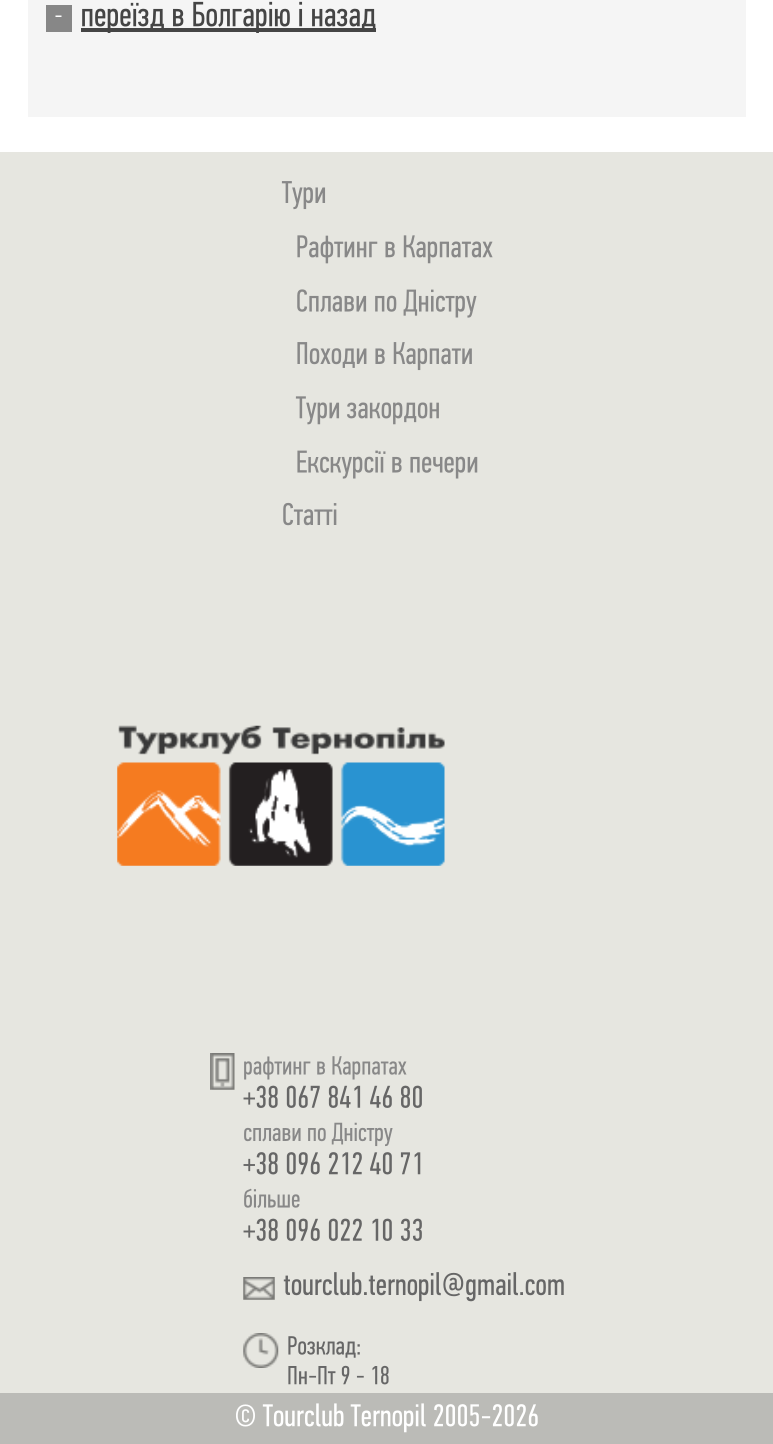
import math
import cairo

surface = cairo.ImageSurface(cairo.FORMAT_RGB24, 773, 1444)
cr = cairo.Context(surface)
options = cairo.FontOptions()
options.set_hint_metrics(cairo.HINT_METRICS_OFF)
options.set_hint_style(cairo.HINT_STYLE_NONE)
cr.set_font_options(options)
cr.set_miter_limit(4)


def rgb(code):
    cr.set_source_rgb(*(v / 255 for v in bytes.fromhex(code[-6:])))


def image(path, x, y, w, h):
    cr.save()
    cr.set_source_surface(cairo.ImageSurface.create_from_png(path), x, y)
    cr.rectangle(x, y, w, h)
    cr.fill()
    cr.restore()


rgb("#ffffff")
cr.paint()
rgb("#f5f5f5")
cr.rectangle(28, 0, 718, 117)
cr.fill()
rgb("#878787")
cr.rectangle(46, 5, 26, 27)
cr.fill()
rgb("#ffffff")
cr.new_path()
cr.move_to(55.5, 17)
cr.line_to(55.5, 15.5)
cr.line_to(61.5, 15.5)
cr.line_to(61.5, 17)
cr.close_path()
cr.fill()
rgb("#454545")
cr.rectangle(81, 28, 295, 4)
cr.fill()
image("img/1.png", 82, 1, 294, 32)
rgb("#e6e6e0")
cr.rectangle(0, 152, 773, 1241)
cr.fill()
image("img/2.png", 281, 181, 45, 29)
image("img/3.png", 297, 235, 196, 29)
image("img/4.png", 297, 289, 180, 29)
image("img/5.png", 297, 342, 175, 29)
image("img/6.png", 295, 396, 144, 29)
image("img/7.png", 297, 450, 181, 29)
image("img/8.png", 283, 502, 54, 24)
image("img/9.png", 117, 725, 328, 141)
image("img/10.png", 210, 1053, 25, 37)
image("img/11.png", 244, 1056, 163, 24)
image("img/12.png", 243, 1085, 179, 23)
image("img/13.png", 244, 1122, 149, 25)
image("img/14.png", 243, 1152, 178, 23)
image("img/15.png", 244, 1188, 56, 20)
image("img/16.png", 243, 1218, 179, 23)
image("img/17.png", 243, 1277, 32, 23)
image("img/18.png", 283, 1272, 281, 30)
image("img/19.png", 243, 1333, 36, 35)
image("img/20.png", 288, 1336, 72, 22)
image("img/21.png", 288, 1365, 101, 20)
rgb("#bbbbb7")
cr.rectangle(0, 1393, 773, 51)
cr.fill()
image("img/22.png", 236, 1403, 302, 30)
surface.write_to_png("page.png")
